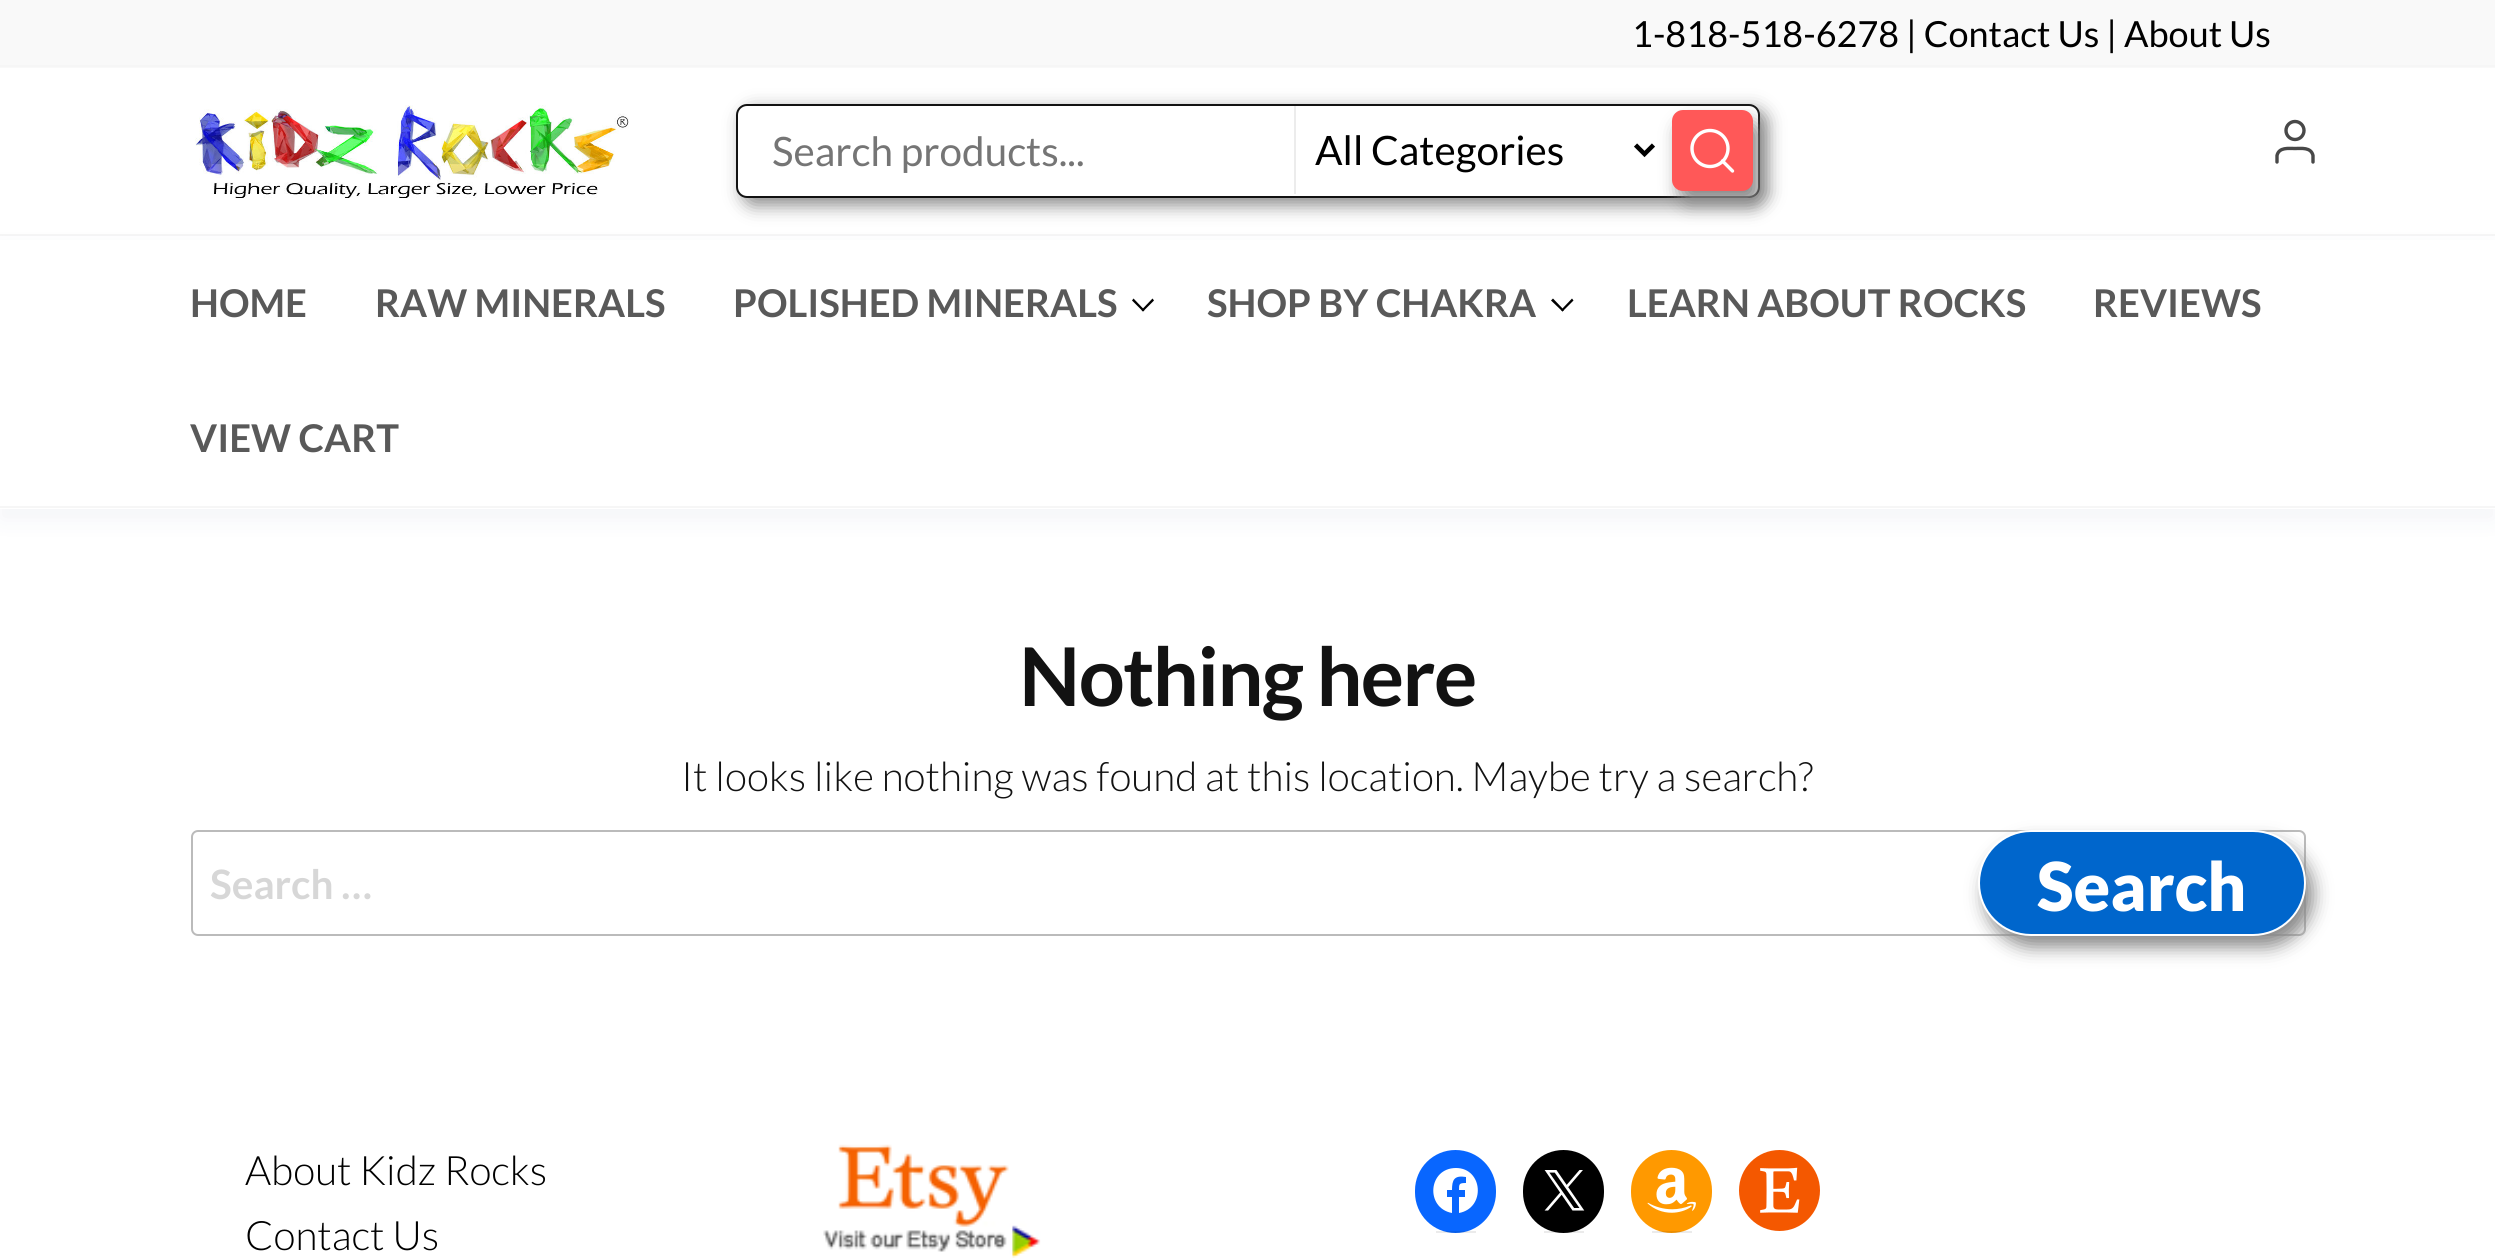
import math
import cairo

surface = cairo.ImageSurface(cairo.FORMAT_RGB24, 2495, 1259)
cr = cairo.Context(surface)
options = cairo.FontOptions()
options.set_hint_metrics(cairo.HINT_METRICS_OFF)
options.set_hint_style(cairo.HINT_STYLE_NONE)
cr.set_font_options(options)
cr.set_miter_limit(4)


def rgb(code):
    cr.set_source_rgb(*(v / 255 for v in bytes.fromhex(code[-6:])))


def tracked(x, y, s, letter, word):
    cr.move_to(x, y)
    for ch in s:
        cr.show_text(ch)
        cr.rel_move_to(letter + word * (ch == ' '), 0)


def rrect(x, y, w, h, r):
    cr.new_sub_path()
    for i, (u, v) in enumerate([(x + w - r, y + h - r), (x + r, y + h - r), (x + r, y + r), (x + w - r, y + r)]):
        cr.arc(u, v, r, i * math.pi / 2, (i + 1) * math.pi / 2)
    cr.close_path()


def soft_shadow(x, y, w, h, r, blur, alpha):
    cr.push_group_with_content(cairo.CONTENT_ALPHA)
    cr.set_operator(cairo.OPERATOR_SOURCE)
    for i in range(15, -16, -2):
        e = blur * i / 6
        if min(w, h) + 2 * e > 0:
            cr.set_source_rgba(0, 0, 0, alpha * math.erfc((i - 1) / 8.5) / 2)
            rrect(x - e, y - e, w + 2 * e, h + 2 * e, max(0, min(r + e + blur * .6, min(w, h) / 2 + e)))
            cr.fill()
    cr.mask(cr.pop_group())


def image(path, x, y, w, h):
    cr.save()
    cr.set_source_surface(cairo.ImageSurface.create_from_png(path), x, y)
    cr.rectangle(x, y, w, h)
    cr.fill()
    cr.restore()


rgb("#ffffff")
cr.paint()
for x, y, w, h, color in [
    (0, 0, 2495, 68, "#f9f9f9"),
    (0, 65, 2495, 2, "#f6f6f6"),
    (0, 234, 2495, 2, "#f6f6f6"),
]:
    rgb(color)
    cr.rectangle(x, y, w, h)
    cr.fill()
image("img/1.png", 195, 105, 434, 93)
rgb("#888888")
soft_shadow(743, 110, 1023, 95, 11, 9, 1)
rgb("#ffffff")
rrect(737, 105, 1022, 92, 10)
cr.fill_preserve()
rgb("#121212")
cr.stroke()
rgb("#ececec")
cr.rectangle(1294, 106, 2, 88)
cr.fill()
cr.new_path()
cr.move_to(1635.5, 145)
cr.line_to(1644.5, 154)
cr.line_to(1653.5, 145)
rgb("#000000")
cr.set_line_width(4.5)
cr.stroke()
rgb("#888888")
soft_shadow(1679, 122, 81, 81, 11, 9, 1)
rgb("#ff5858")
rrect(1672, 110, 81, 81, 11)
cr.fill()
cr.arc(1710, 148.5, 18, 0, 2 * math.pi)
rgb("#ffffff")
cr.set_line_width(3.4)
cr.stroke()
cr.new_path()
cr.move_to(1732.5, 171)
cr.line_to(1722.5, 161)
cr.set_line_cap(cairo.LINE_CAP_ROUND)
cr.set_line_join(cairo.LINE_JOIN_ROUND)
cr.stroke()
cr.arc(2295, 130.5, 9, 0, 2 * math.pi)
rgb("#484848")
cr.set_line_cap(cairo.LINE_CAP_BUTT)
cr.set_line_join(cairo.LINE_JOIN_MITER)
cr.stroke()
cr.new_path()
cr.move_to(2313, 162)
cr.line_to(2313, 155.5)
cr.curve_to(2311, 147, 2301.5, 148.5, 2295, 148.5)
cr.curve_to(2288.5, 148.5, 2279, 147, 2277, 155.5)
cr.line_to(2277, 162)
cr.set_line_cap(cairo.LINE_CAP_ROUND)
cr.set_line_join(cairo.LINE_JOIN_ROUND)
cr.stroke()
rgb("#192d6e")
soft_shadow(0, 248, 2495, 272, 0, 11, 0.05)
rgb("#ffffff")
cr.rectangle(0, 240, 2495, 269)
cr.fill()
rgb("#f6f6f6")
cr.rectangle(0, 506, 2495, 2)
cr.fill()
rgb("#000000")
cr.new_path()
cr.move_to(1154, 300.5)
cr.line_to(1143, 311.5)
cr.line_to(1141.5, 310)
cr.line_to(1152.5, 298.5)
cr.close_path()
cr.fill()
cr.new_path()
cr.move_to(1144.5, 310)
cr.line_to(1143, 311.5)
cr.line_to(1132, 300.5)
cr.line_to(1133.5, 298.5)
cr.close_path()
cr.fill()
cr.new_path()
cr.move_to(1573.5, 300.5)
cr.line_to(1562.5, 311.5)
cr.line_to(1561, 310)
cr.line_to(1572, 298.5)
cr.close_path()
cr.fill()
cr.new_path()
cr.move_to(1564, 310)
cr.line_to(1562.5, 311.5)
cr.line_to(1551, 300.5)
cr.line_to(1553, 298.5)
cr.close_path()
cr.fill()
rrect(192, 831, 2113, 104, 6)
rgb("#bbbbbb")
cr.set_line_width(2)
cr.set_line_cap(cairo.LINE_CAP_BUTT)
cr.set_line_join(cairo.LINE_JOIN_MITER)
cr.stroke()
rgb("#888888")
soft_shadow(1985, 842, 328, 105, 52.5, 9, 1)
rgb("#0066cc")
rrect(1979, 831, 326, 104, 52)
cr.fill_preserve()
rgb("#ffffff")
cr.stroke()
image("img/2.png", 823, 1144, 218, 114)
rgb("#0866ff")
rrect(1415, 1150, 81, 83, 40.5)
cr.fill()
cr.set_source_rgba(0, 0, 0, 0.08)
cr.rectangle(1436, 1231, 40, 2)
cr.fill()
rgb("#ffffff")
cr.new_path()
cr.move_to(1456, 1168)
cr.curve_to(1428, 1168, 1425, 1208, 1452, 1213)
cr.line_to(1452, 1197)
cr.line_to(1447, 1197)
cr.line_to(1447, 1190)
cr.line_to(1452, 1190)
cr.curve_to(1452, 1180, 1454, 1175, 1466, 1177)
cr.line_to(1466, 1183)
cr.curve_to(1459, 1183, 1459, 1184, 1459, 1190)
cr.line_to(1465, 1190)
cr.line_to(1465, 1197)
cr.line_to(1459, 1197)
cr.line_to(1459, 1213)
cr.curve_to(1486, 1208, 1483, 1168, 1456, 1168)
cr.close_path()
cr.fill()
rgb("#000000")
rrect(1523, 1150, 81, 83, 40.5)
cr.fill()
cr.set_source_rgba(0, 0, 0, 0.08)
cr.rectangle(1544, 1231, 40, 2)
cr.fill()
image("img/3.png", 1544, 1170, 41, 41)
rgb("#ff9900")
rrect(1631, 1150, 81, 83, 40.5)
cr.fill()
cr.set_source_rgba(0, 0, 0, 0.08)
cr.rectangle(1652, 1231, 40, 2)
cr.fill()
image("img/4.png", 1647, 1167, 49, 46)
rgb("#f45800")
cr.arc(1779.5, 1190.5, 40.5, 0, 2 * math.pi)
cr.fill()
image("img/5.png", 1760, 1167, 40, 46)
cr.select_font_face("Lato")
cr.set_font_size(36)
rgb("#000000")
cr.move_to(1632, 47)
cr.show_text("1-818-518-6278 | Contact Us | About Us")
cr.set_font_size(40.5)
rgb("#757575")
cr.move_to(772, 166)
cr.show_text("Search products...")
rgb("#000000")
cr.move_to(1315, 165)
cr.show_text("All Categories")
cr.select_font_face("Lato", cairo.FONT_SLANT_NORMAL, cairo.FONT_WEIGHT_BOLD)
cr.set_font_size(38.25)
rgb("#595959")
for x, y, s in [
    (190, 317, "HOME"),
    (375, 317, "RAW MINERALS"),
    (733, 317, "POLISHED MINERALS"),
    (1207, 317, "SHOP BY CHAKRA"),
    (1627, 317, "LEARN ABOUT ROCKS"),
    (2093, 317, "REVIEWS"),
    (190, 452, "VIEW CART"),
]:
    cr.move_to(x, y)
    cr.show_text(s)
cr.set_font_size(81)
rgb("#121212")
tracked(1019, 706, "Nothing here", -1.6, 0)
cr.select_font_face("Lato Light")
cr.set_font_size(40.5)
cr.move_to(681, 791)
cr.show_text("It looks like nothing was found at this location. Maybe try a search?")
cr.select_font_face("Lato", cairo.FONT_SLANT_NORMAL, cairo.FONT_WEIGHT_BOLD)
rgb("#d7d7d7")
cr.move_to(210, 899)
cr.show_text("Search …")
cr.select_font_face("Lato Black")
cr.set_font_size(67.5)
rgb("#ffffff")
cr.move_to(2037, 911)
cr.show_text("Search")
cr.select_font_face("Lato Light")
cr.set_font_size(40.5)
rgb("#000000")
cr.move_to(245, 1185)
cr.show_text("About Kidz Rocks")
cr.move_to(245, 1250)
cr.show_text("Contact Us")
surface.write_to_png("page.png")
